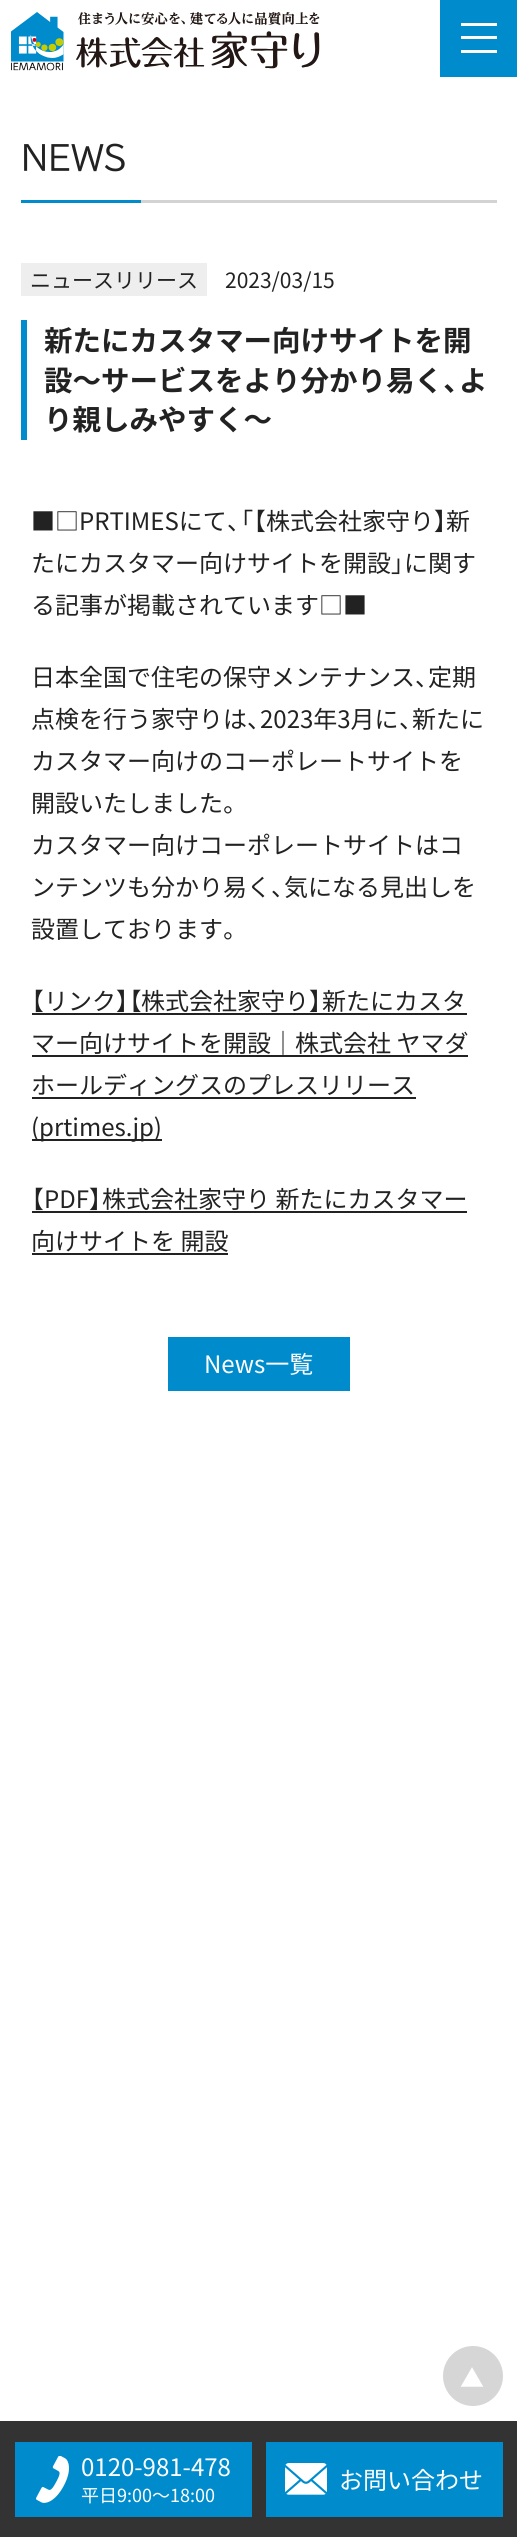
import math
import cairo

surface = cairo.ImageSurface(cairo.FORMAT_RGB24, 517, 2537)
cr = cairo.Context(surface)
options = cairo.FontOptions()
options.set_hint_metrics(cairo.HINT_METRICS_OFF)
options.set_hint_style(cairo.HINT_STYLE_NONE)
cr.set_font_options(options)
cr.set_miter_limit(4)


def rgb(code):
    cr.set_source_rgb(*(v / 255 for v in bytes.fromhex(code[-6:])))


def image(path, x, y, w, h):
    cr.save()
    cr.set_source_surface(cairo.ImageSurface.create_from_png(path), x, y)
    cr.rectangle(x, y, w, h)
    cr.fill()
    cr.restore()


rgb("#ffffff")
cr.paint()
image("img/1.png", 11, 12, 309, 59)
for x, y, w, h, color in [
    (440, 0, 77, 77, "#008ccc"),
    (461, 36, 36, 3, "#ffffff"),
    (461, 23, 36, 3, "#ffffff"),
    (461, 50, 36, 3, "#ffffff"),
    (21, 200, 120, 3, "#008ccc"),
    (141, 200, 356, 3, "#d3d3d3"),
    (21, 263, 186, 33, "#eeeeee"),
    (21, 320, 6, 120, "#008ccc"),
    (32, 1013, 435, 2, "#222222"),
    (32, 1055, 436, 2, "#222222"),
    (32, 1097, 384, 2, "#222222"),
    (32, 1139, 130, 2, "#222222"),
    (32, 1211, 435, 2, "#222222"),
    (32, 1253, 196, 2, "#222222"),
    (168, 1337, 182, 54, "#008ccc"),
]:
    rgb(color)
    cr.rectangle(x, y, w, h)
    cr.fill()
rgb("#d6d6d6")
cr.arc(473, 2376, 30, 0, 2 * math.pi)
cr.fill()
rgb("#333333")
cr.rectangle(0, 2421, 517, 116)
cr.fill()
rgb("#008ccc")
cr.rectangle(15, 2442, 237, 75)
cr.fill()
image("img/2.png", 36, 2456, 33, 47)
cr.rectangle(266, 2442, 237, 75)
cr.fill()
image("img/3.png", 285, 2463, 42, 32)
cr.select_font_face("BIZ UDPGothic")
cr.set_font_size(33)
rgb("#222222")
cr.move_to(21, 170)
cr.show_text("NEWS")
cr.select_font_face("Noto Sans CJK JP")
cr.set_font_size(21)
cr.move_to(30, 288)
cr.show_text("ニュースリリース")
cr.move_to(225, 288)
cr.show_text("2023/03/15")
cr.select_font_face("Noto Sans CJK JP", cairo.FONT_SLANT_NORMAL, cairo.FONT_WEIGHT_BOLD)
cr.set_font_size(28.5)
cr.move_to(44, 351)
cr.show_text("新たにカスタマー向けサイトを開")
cr.move_to(44, 391)
cr.show_text("設～サービスをより分かり易く")
cr.select_font_face("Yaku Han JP", cairo.FONT_SLANT_NORMAL, cairo.FONT_WEIGHT_BOLD)
cr.move_to(443, 391)
cr.show_text("、")
cr.select_font_face("Noto Sans CJK JP", cairo.FONT_SLANT_NORMAL, cairo.FONT_WEIGHT_BOLD)
cr.move_to(459, 391)
cr.show_text("よ")
cr.move_to(44, 430)
cr.show_text("り親しみやすく～")
cr.select_font_face("Noto Sans CJK JP")
cr.set_font_size(24)
cr.move_to(31, 530)
cr.show_text("■□PRTIMESにて")
cr.select_font_face("Yaku Han JP")
cr.move_to(227, 530)
cr.show_text("、「【")
cr.select_font_face("Noto Sans CJK JP")
cr.move_to(266, 530)
cr.show_text("株式会社家守り")
cr.select_font_face("Yaku Han JP")
cr.move_to(434, 530)
cr.show_text("】")
cr.select_font_face("Noto Sans CJK JP")
cr.move_to(446, 530)
cr.show_text("新")
cr.move_to(31, 572)
cr.show_text("たにカスタマー向けサイトを開設")
cr.select_font_face("Yaku Han JP")
cr.move_to(391, 572)
cr.show_text("」")
cr.select_font_face("Noto Sans CJK JP")
for x, y, s in [
    (404, 572, "に関す"),
    (31, 614, "る記事が掲載されています□■"),
    (31, 686, "日本全国で住宅の保守メンテナンス"),
]:
    cr.move_to(x, y)
    cr.show_text(s)
cr.select_font_face("Yaku Han JP")
cr.move_to(415, 686)
cr.show_text("、")
cr.select_font_face("Noto Sans CJK JP")
cr.move_to(428, 686)
cr.show_text("定期")
cr.move_to(31, 728)
cr.show_text("点検を行う家守りは")
cr.select_font_face("Yaku Han JP")
cr.move_to(247, 728)
cr.show_text("、")
cr.select_font_face("Noto Sans CJK JP")
cr.move_to(260, 728)
cr.show_text("2023年3月に")
cr.select_font_face("Yaku Han JP")
cr.move_to(399, 728)
cr.show_text("、")
cr.select_font_face("Noto Sans CJK JP")
for x, y, s in [
    (412, 728, "新たに"),
    (31, 770, "カスタマー向けのコーポレートサイトを"),
    (31, 812, "開設いたしました"),
]:
    cr.move_to(x, y)
    cr.show_text(s)
cr.select_font_face("Yaku Han JP")
cr.move_to(223, 812)
cr.show_text("。")
cr.select_font_face("Noto Sans CJK JP")
cr.move_to(31, 854)
cr.show_text("カスタマー向けコーポレートサイトはコ")
cr.move_to(31, 896)
cr.show_text("ンテンツも分かり易く")
cr.select_font_face("Yaku Han JP")
cr.move_to(271, 896)
cr.show_text("、")
cr.select_font_face("Noto Sans CJK JP")
cr.move_to(284, 896)
cr.show_text("気になる見出しを")
cr.move_to(31, 938)
cr.show_text("設置しております")
cr.select_font_face("Yaku Han JP")
cr.move_to(223, 938)
cr.show_text("。")
cr.move_to(31, 1010)
cr.show_text("【")
cr.select_font_face("Noto Sans CJK JP")
cr.move_to(44, 1010)
cr.show_text("リンク")
cr.select_font_face("Yaku Han JP")
cr.move_to(116, 1010)
cr.show_text("】【")
cr.select_font_face("Noto Sans CJK JP")
cr.move_to(141, 1010)
cr.show_text("株式会社家守り")
cr.select_font_face("Yaku Han JP")
cr.move_to(309, 1010)
cr.show_text("】")
cr.select_font_face("Noto Sans CJK JP")
for x, y, s in [
    (322, 1010, "新たにカスタ"),
    (31, 1052, "マー向けサイトを開設｜株式会社 ヤマダ"),
    (31, 1094, "ホールディングスのプレスリリース"),
    (31, 1136, "(prtimes.jp)"),
]:
    cr.move_to(x, y)
    cr.show_text(s)
cr.select_font_face("Yaku Han JP")
cr.move_to(31, 1208)
cr.show_text("【")
cr.select_font_face("Noto Sans CJK JP")
cr.move_to(44, 1208)
cr.show_text("PDF")
cr.select_font_face("Yaku Han JP")
cr.move_to(89, 1208)
cr.show_text("】")
cr.select_font_face("Noto Sans CJK JP")
cr.move_to(102, 1208)
cr.show_text("株式会社家守り 新たにカスタマー")
cr.move_to(31, 1250)
cr.show_text("向けサイトを 開設")
rgb("#ffffff")
for x, y, s in [
    (204, 1373, "News一覧"),
    (460, 2387, "▲"),
    (81, 2476, "0120-981-478"),
]:
    cr.move_to(x, y)
    cr.show_text(s)
cr.set_font_size(18)
cr.move_to(81, 2502)
cr.show_text("平日9:00～18:00")
cr.set_font_size(24)
cr.move_to(339, 2489)
cr.show_text("お問い合わせ")
surface.write_to_png("page.png")
